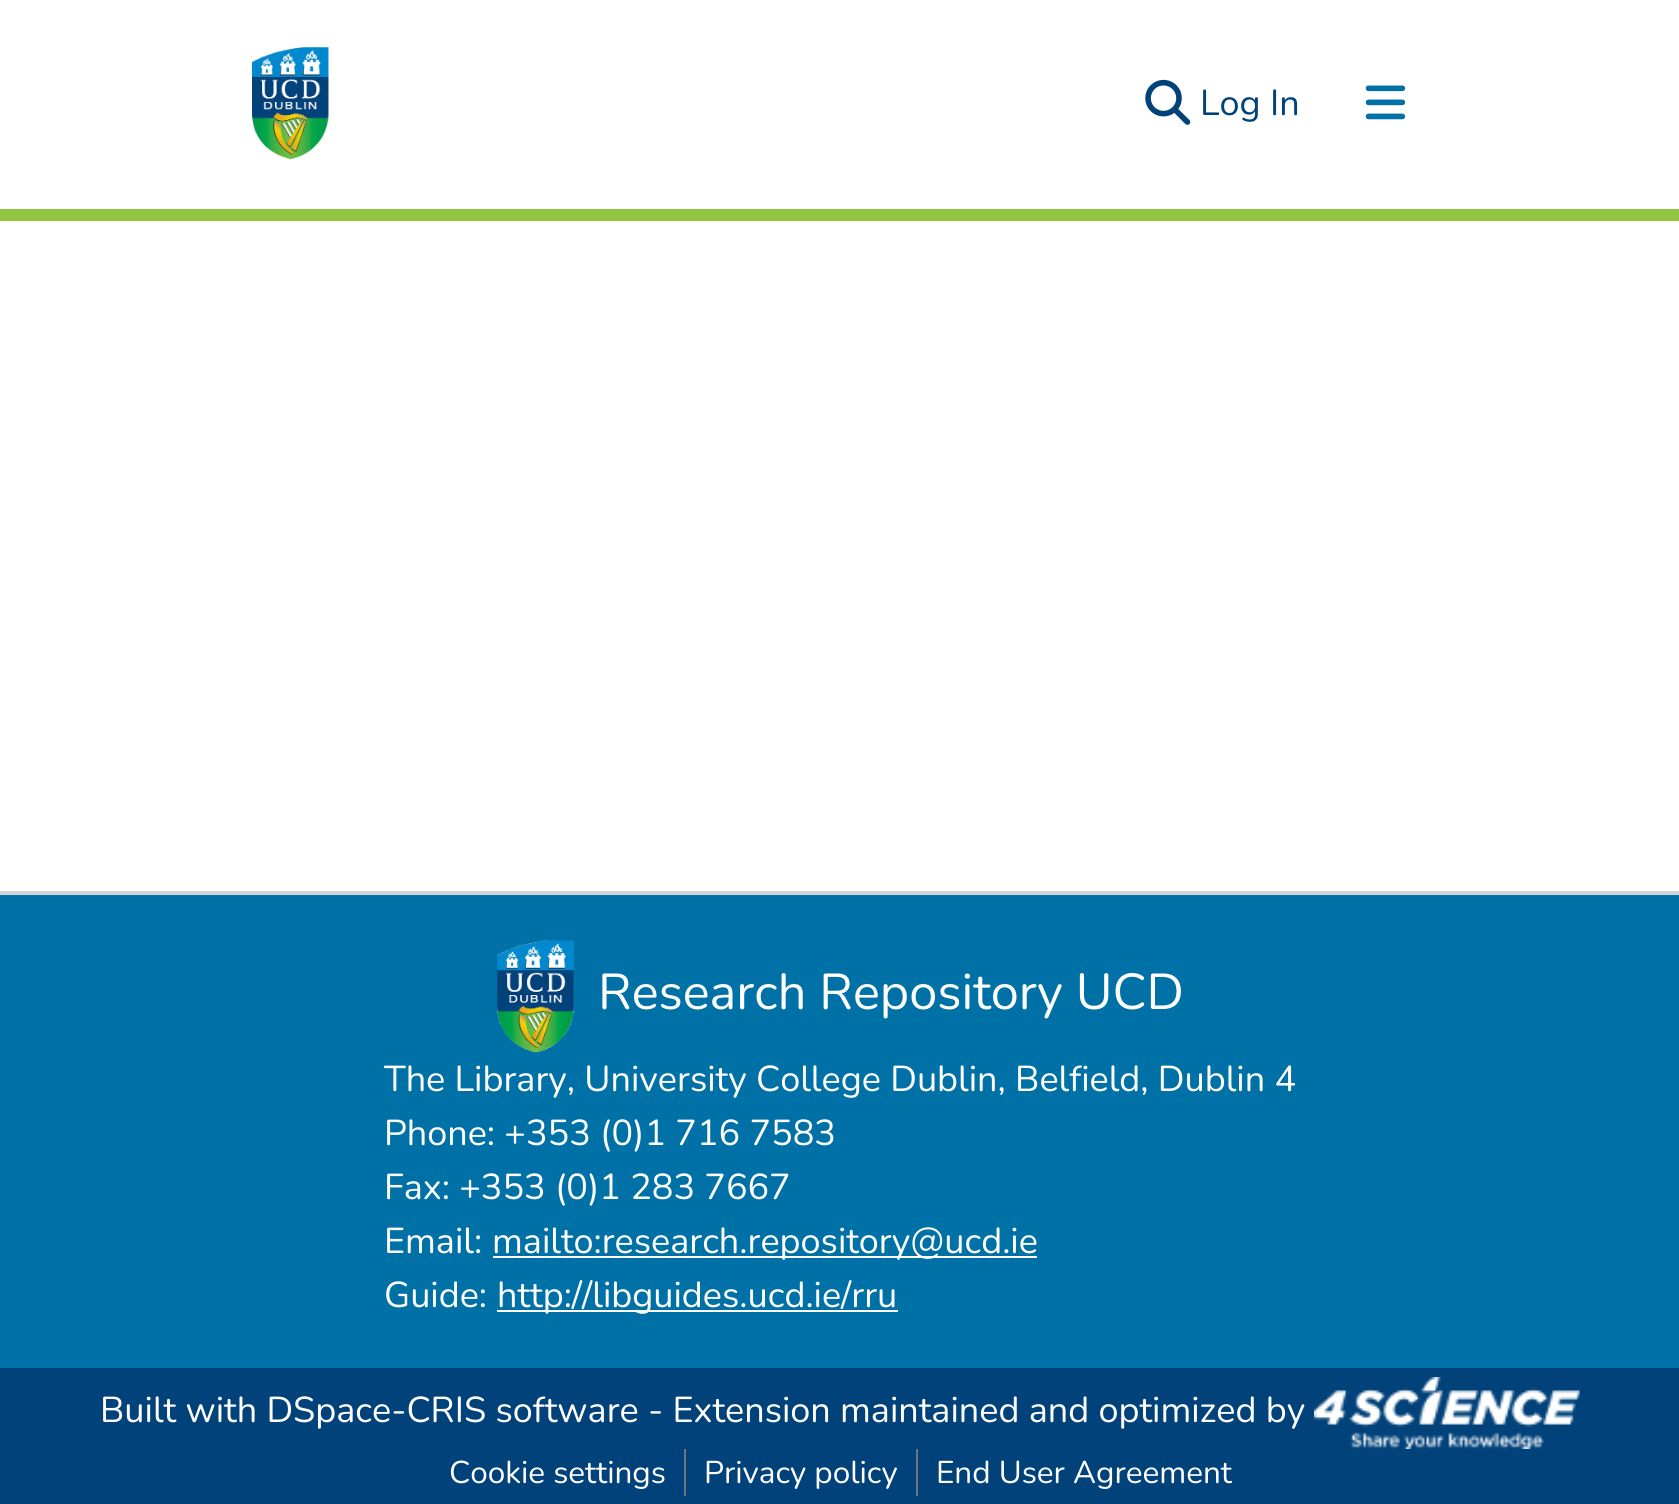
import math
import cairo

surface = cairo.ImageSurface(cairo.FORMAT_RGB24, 1679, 1504)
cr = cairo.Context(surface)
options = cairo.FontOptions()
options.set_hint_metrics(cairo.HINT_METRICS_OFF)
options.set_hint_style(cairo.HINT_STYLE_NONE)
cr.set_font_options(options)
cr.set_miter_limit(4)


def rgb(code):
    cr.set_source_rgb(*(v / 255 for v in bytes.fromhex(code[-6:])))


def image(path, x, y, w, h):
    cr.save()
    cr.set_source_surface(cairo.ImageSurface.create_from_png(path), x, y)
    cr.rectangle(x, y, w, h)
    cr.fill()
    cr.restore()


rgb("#ffffff")
cr.paint()
image("img/1.png", 252, 47, 77, 112)
image("img/2.png", 1145, 79, 46, 46)
image("img/3.png", 1365, 85, 41, 35)
for x, y, w, h, color in [
    (0, 209, 1679, 12, "#92c642"),
    (0, 1368, 1679, 136, "#01427a"),
    (0, 891, 1679, 4, "#ced4da"),
    (0, 895, 1679, 473, "#0071a7"),
]:
    rgb(color)
    cr.rectangle(x, y, w, h)
    cr.fill()
image("img/4.png", 497, 940, 77, 113)
rgb("#ffffff")
cr.rectangle(493, 1256, 544, 2)
cr.fill()
cr.rectangle(497, 1310, 401, 2)
cr.fill()
image("img/5.png", 1314, 1377, 266, 72)
rgb("#6c757d")
cr.rectangle(684, 1449, 2, 47)
cr.fill()
cr.rectangle(916, 1449, 2, 47)
cr.fill()
cr.select_font_face("Nunito")
cr.set_font_size(36)
rgb("#01427a")
cr.move_to(1200, 115)
cr.show_text("Log In")
cr.set_font_size(50.4)
rgb("#ffffff")
cr.move_to(598, 1009)
cr.show_text("Research Repository UCD")
cr.set_font_size(36)
for x, y, s in [
    (384, 1091, "The Library, University College Dublin, Belfield, Dublin 4"),
    (384, 1145, "Phone: +353 (0)1 716 7583"),
    (384, 1199, "Fax: +353 (0)1 283 7667"),
    (384, 1253, "Email:"),
    (492, 1253, "mailto:research.repository@ucd.ie"),
    (384, 1307, "Guide:"),
    (497, 1307, "http://libguides.ucd.ie/rru"),
    (100, 1422, "Built with DSpace-CRIS software - Extension maintained and optimized by"),
]:
    cr.move_to(x, y)
    cr.show_text(s)
cr.set_font_size(31.5)
for x, y, s in [
    (449, 1483, "Cookie settings"),
    (704, 1483, "Privacy policy"),
    (936, 1483, "End User Agreement"),
]:
    cr.move_to(x, y)
    cr.show_text(s)
surface.write_to_png("page.png")
